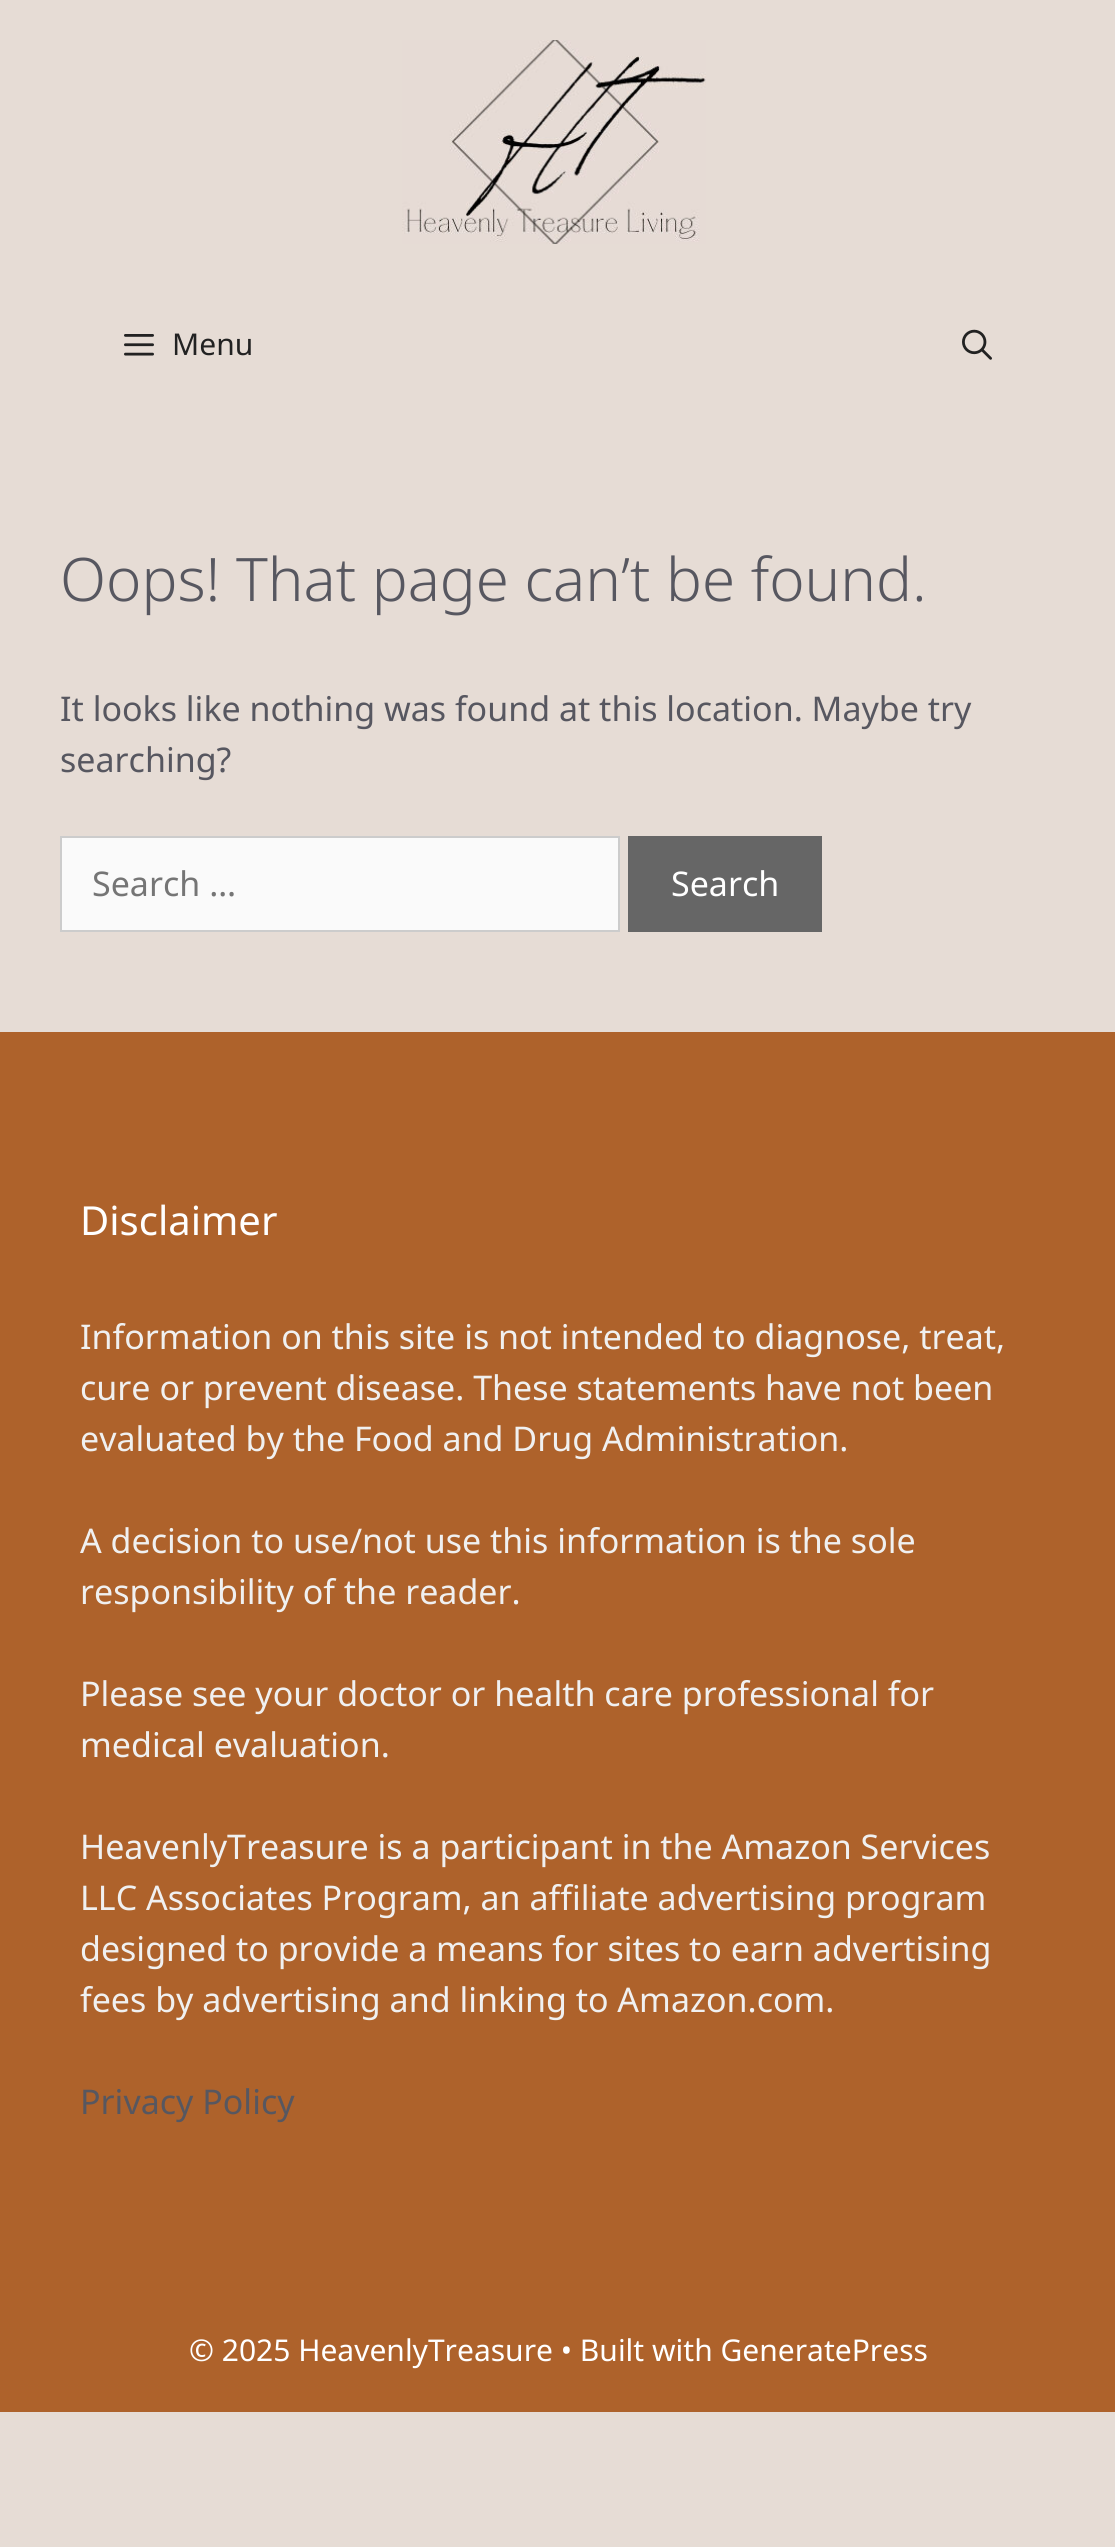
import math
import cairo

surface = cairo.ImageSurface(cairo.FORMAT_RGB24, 1115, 2547)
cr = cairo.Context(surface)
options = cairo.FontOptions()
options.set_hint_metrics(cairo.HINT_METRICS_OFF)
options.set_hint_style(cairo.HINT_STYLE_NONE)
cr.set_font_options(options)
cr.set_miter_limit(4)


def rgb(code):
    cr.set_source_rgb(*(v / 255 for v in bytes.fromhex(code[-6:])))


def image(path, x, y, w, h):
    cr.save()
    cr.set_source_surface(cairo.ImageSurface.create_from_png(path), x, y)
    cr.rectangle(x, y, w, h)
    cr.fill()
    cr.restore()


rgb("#e6dcd5")
cr.paint()
image("img/1.png", 402, 40, 304, 204)
image("img/2.png", 124, 334, 30, 22)
image("img/3.png", 962, 329, 30, 31)
rgb("#fafafa")
cr.rectangle(61, 837, 558, 94)
cr.fill_preserve()
rgb("#cccccc")
cr.stroke()
rgb("#666666")
cr.rectangle(628, 836, 194, 96)
cr.fill()
rgb("#ae622b")
cr.rectangle(0, 1032, 1115, 1380)
cr.fill()
cr.select_font_face("Noto Sans")
cr.set_font_size(30)
rgb("#222222")
cr.move_to(172, 355)
cr.show_text("Menu")
cr.select_font_face("Noto Sans Light")
cr.set_font_size(60)
rgb("#575760")
cr.move_to(60, 601)
cr.show_text("Oops! That page can’t be found.")
cr.select_font_face("Noto Sans")
cr.set_font_size(34)
cr.move_to(60, 721)
cr.show_text("It looks like nothing was found at this location. Maybe try")
cr.move_to(60, 772)
cr.show_text("searching?")
rgb("#757575")
cr.move_to(92, 896)
cr.show_text("Search …")
rgb("#ffffff")
cr.move_to(671, 896)
cr.show_text("Search")
cr.set_font_size(40)
cr.move_to(80, 1235)
cr.show_text("Disclaimer")
cr.set_font_size(34)
rgb("#f0f0f0")
for x, y, s in [
    (80, 1349, "Information on this site is not intended to diagnose, treat,"),
    (80, 1400, "cure or prevent disease. These statements have not been"),
    (80, 1451, "evaluated by the Food and Drug Administration."),
    (80, 1553, "A decision to use/not use this information is the sole"),
    (80, 1604, "responsibility of the reader."),
    (80, 1706, "Please see your doctor or health care professional for"),
    (80, 1757, "medical evaluation."),
    (80, 1859, "HeavenlyTreasure is a participant in the Amazon Services"),
    (80, 1910, "LLC Associates Program, an affiliate advertising program"),
    (80, 1961, "designed to provide a means for sites to earn advertising"),
    (80, 2012, "fees by advertising and linking to Amazon.com."),
]:
    cr.move_to(x, y)
    cr.show_text(s)
rgb("#575760")
cr.move_to(80, 2114)
cr.show_text("Privacy Policy")
cr.set_font_size(30)
rgb("#ffffff")
cr.move_to(189, 2361)
cr.show_text("© 2025 HeavenlyTreasure • Built with GeneratePress")
surface.write_to_png("page.png")
